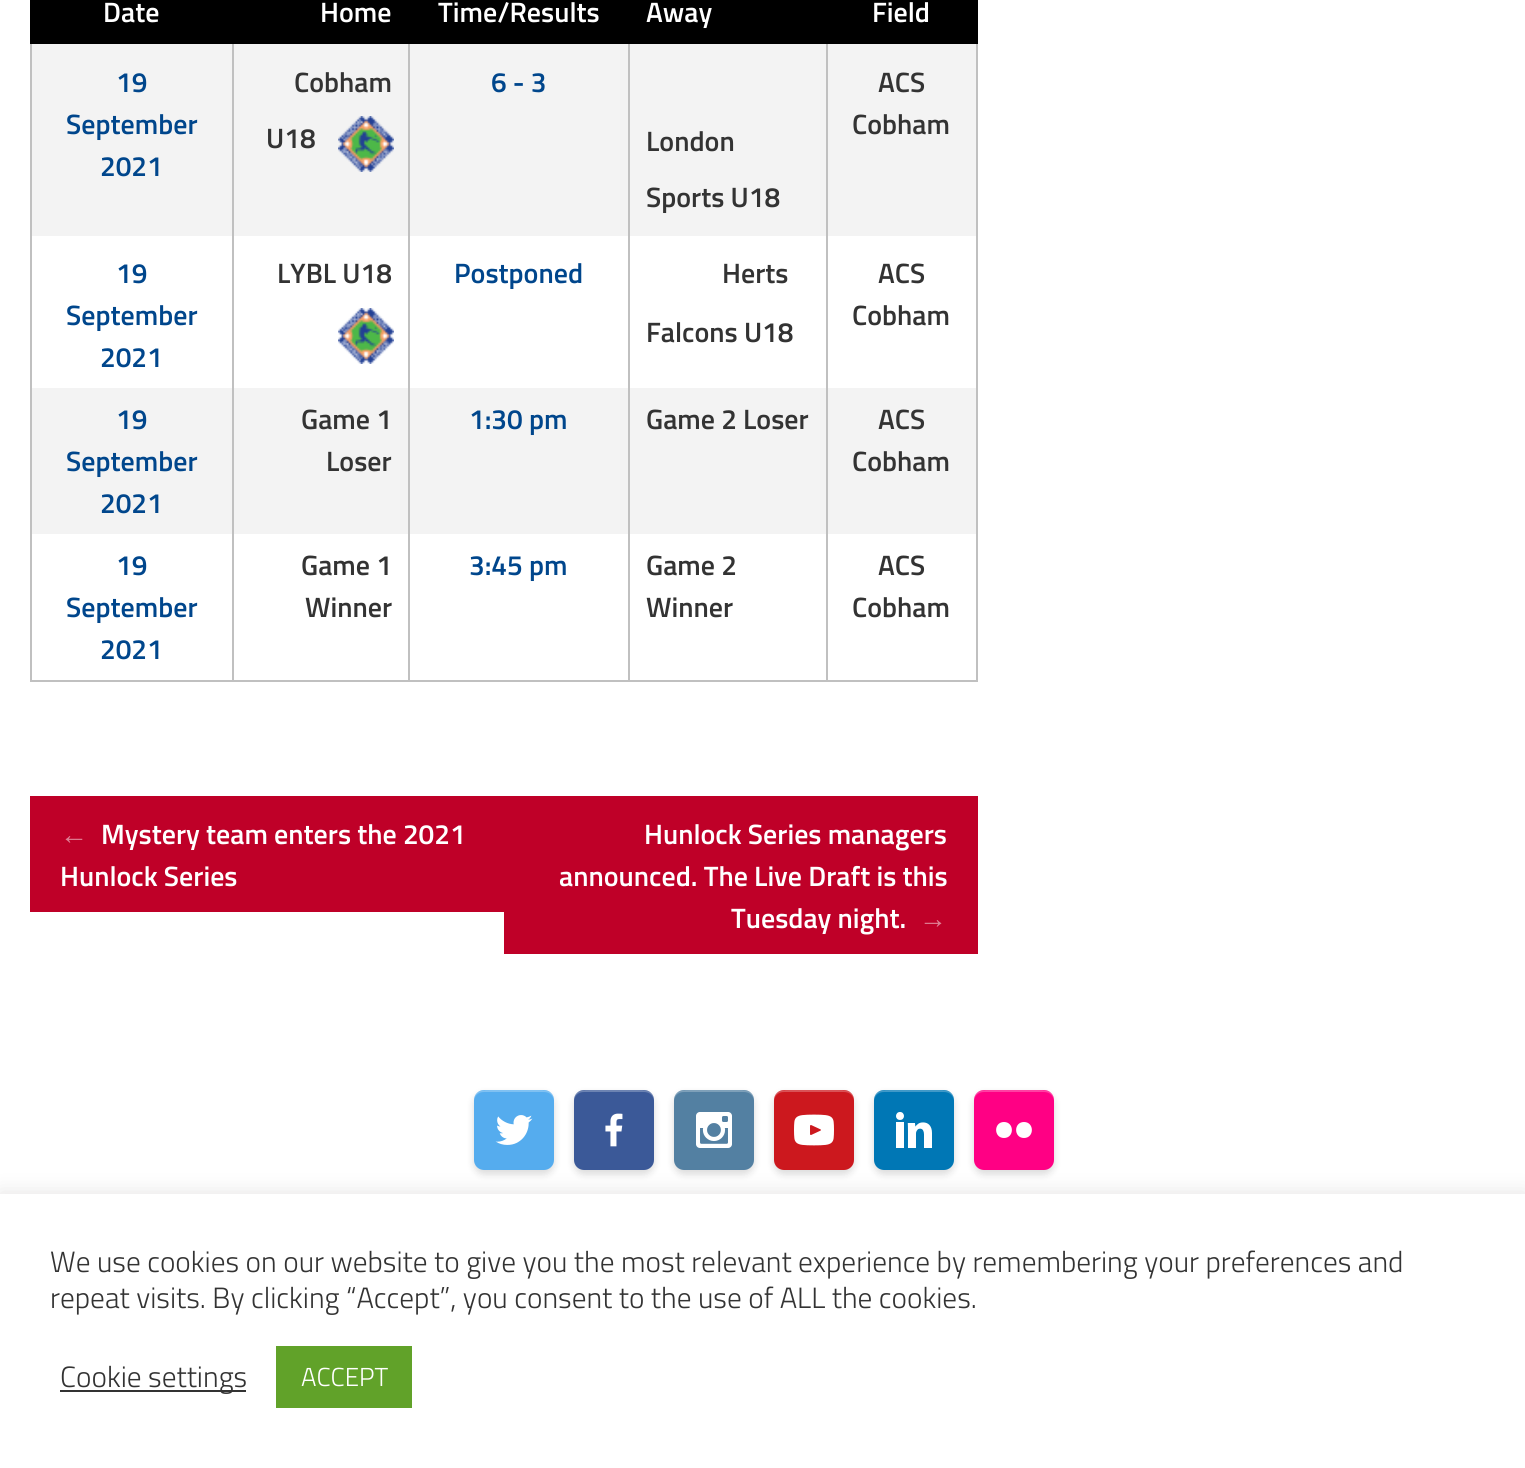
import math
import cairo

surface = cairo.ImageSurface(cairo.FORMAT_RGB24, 1525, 1468)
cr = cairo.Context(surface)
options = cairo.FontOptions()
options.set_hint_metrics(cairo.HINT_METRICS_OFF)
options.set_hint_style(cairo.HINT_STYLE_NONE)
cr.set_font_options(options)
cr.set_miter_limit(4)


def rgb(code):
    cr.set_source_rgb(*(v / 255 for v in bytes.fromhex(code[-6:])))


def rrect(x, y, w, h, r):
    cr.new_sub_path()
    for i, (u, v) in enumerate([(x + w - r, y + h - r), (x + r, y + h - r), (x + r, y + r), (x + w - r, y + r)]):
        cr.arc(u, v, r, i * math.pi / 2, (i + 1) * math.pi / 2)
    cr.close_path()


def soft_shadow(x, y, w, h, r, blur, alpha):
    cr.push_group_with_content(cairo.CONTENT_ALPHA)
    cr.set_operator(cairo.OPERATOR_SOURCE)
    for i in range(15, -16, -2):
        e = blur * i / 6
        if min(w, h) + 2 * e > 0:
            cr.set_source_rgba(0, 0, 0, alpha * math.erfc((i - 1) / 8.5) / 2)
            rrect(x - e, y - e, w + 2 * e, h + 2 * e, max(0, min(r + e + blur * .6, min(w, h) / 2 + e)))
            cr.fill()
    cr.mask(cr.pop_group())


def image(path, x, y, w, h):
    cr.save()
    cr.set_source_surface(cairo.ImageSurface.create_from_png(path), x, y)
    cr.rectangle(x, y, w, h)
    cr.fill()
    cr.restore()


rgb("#ffffff")
cr.paint()
for x, y, w, h, color in [
    (976, 236, 2, 446, "#c0c0c0"),
    (30, 680, 948, 2, "#c0c0c0"),
    (30, 236, 2, 446, "#c0c0c0"),
    (32, 0, 944, 42, "#000000"),
    (30, 42, 948, 2, "#000000"),
    (30, 42, 2, 194, "#c0c0c0"),
    (30, 0, 2, 44, "#000000"),
    (32, 44, 944, 192, "#f3f3f3"),
    (32, 388, 944, 146, "#f3f3f3"),
    (232, 42, 2, 640, "#c0c0c0"),
    (232, 42, 2, 2, "#000000"),
    (408, 42, 2, 640, "#c0c0c0"),
    (408, 42, 2, 2, "#000000"),
    (628, 42, 2, 640, "#c0c0c0"),
    (628, 42, 2, 2, "#000000"),
    (976, 42, 2, 194, "#c0c0c0"),
    (976, 0, 2, 44, "#000000"),
    (826, 42, 2, 640, "#c0c0c0"),
    (826, 42, 2, 2, "#000000"),
]:
    rgb(color)
    cr.rectangle(x, y, w, h)
    cr.fill()
image("img/1.png", 338, 116, 56, 56)
image("img/2.png", 338, 308, 56, 56)
rgb("#bf0028")
cr.rectangle(30, 796, 474, 116)
cr.fill()
cr.rectangle(504, 796, 474, 158)
cr.fill()
rgb("#000000")
soft_shadow(474, 1094, 80, 80, 10, 4, 0.15)
rgb("#55acee")
rrect(474, 1090, 80, 80, 10)
cr.fill()
cr.set_source_rgba(1, 1, 1, 0.25)
cr.new_path()
cr.move_to(484, 1092)
cr.line_to(544, 1092)
cr.curve_to(550, 1092, 554, 1096, 554, 1102)
cr.curve_to(554, 1089, 545, 1090, 534, 1090)
cr.line_to(494, 1090)
cr.curve_to(483, 1090, 474, 1089, 474, 1102)
cr.curve_to(474, 1096, 478, 1092, 484, 1092)
cr.close_path()
cr.fill()
image("img/3.png", 495, 1115, 38, 30)
rgb("#000000")
soft_shadow(574, 1094, 80, 80, 10, 4, 0.15)
rgb("#3b5998")
rrect(574, 1090, 80, 80, 10)
cr.fill()
cr.set_source_rgba(1, 1, 1, 0.25)
cr.new_path()
cr.move_to(584, 1092)
cr.line_to(644, 1092)
cr.curve_to(650, 1092, 654, 1096, 654, 1102)
cr.curve_to(654, 1089, 645, 1090, 634, 1090)
cr.line_to(594, 1090)
cr.curve_to(583, 1090, 574, 1089, 574, 1102)
cr.curve_to(574, 1096, 578, 1092, 584, 1092)
cr.close_path()
cr.fill()
image("img/4.png", 605, 1113, 18, 34)
rgb("#000000")
soft_shadow(674, 1094, 80, 80, 10, 4, 0.15)
rgb("#5380a2")
rrect(674, 1090, 80, 80, 10)
cr.fill()
cr.set_source_rgba(1, 1, 1, 0.25)
cr.new_path()
cr.move_to(684, 1092)
cr.line_to(744, 1092)
cr.curve_to(750, 1092, 754, 1096, 754, 1102)
cr.curve_to(754, 1089, 745, 1090, 734, 1090)
cr.line_to(694, 1090)
cr.curve_to(683, 1090, 674, 1089, 674, 1102)
cr.curve_to(674, 1096, 678, 1092, 684, 1092)
cr.close_path()
cr.fill()
image("img/5.png", 696, 1112, 36, 36)
rgb("#000000")
soft_shadow(774, 1094, 80, 80, 10, 4, 0.15)
rgb("#cc181e")
rrect(774, 1090, 80, 80, 10)
cr.fill()
cr.set_source_rgba(1, 1, 1, 0.25)
cr.new_path()
cr.move_to(784, 1092)
cr.line_to(844, 1092)
cr.curve_to(850, 1092, 854, 1096, 854, 1102)
cr.curve_to(854, 1089, 845, 1090, 834, 1090)
cr.line_to(794, 1090)
cr.curve_to(783, 1090, 774, 1089, 774, 1102)
cr.curve_to(774, 1096, 778, 1092, 784, 1092)
cr.close_path()
cr.fill()
image("img/6.png", 794, 1114, 40, 32)
rgb("#000000")
soft_shadow(874, 1094, 80, 80, 10, 4, 0.15)
rgb("#0077b5")
rrect(874, 1090, 80, 80, 10)
cr.fill()
cr.set_source_rgba(1, 1, 1, 0.25)
cr.new_path()
cr.move_to(884, 1092)
cr.line_to(944, 1092)
cr.curve_to(950, 1092, 954, 1096, 954, 1102)
cr.curve_to(954, 1089, 945, 1090, 934, 1090)
cr.line_to(894, 1090)
cr.curve_to(883, 1090, 874, 1089, 874, 1102)
cr.curve_to(874, 1096, 878, 1092, 884, 1092)
cr.close_path()
cr.fill()
image("img/7.png", 896, 1112, 36, 36)
rgb("#000000")
soft_shadow(974, 1094, 80, 80, 10, 4, 0.15)
rgb("#ff0084")
rrect(974, 1090, 80, 80, 10)
cr.fill()
cr.set_source_rgba(1, 1, 1, 0.25)
cr.new_path()
cr.move_to(984, 1092)
cr.line_to(1044, 1092)
cr.curve_to(1050, 1092, 1054, 1096, 1054, 1102)
cr.curve_to(1054, 1089, 1045, 1090, 1034, 1090)
cr.line_to(994, 1090)
cr.curve_to(983, 1090, 974, 1089, 974, 1102)
cr.curve_to(974, 1096, 978, 1092, 984, 1092)
cr.close_path()
cr.fill()
rgb("#ffffff")
cr.new_path()
cr.move_to(1004, 1138)
cr.curve_to(993.5, 1138, 993.5, 1122, 1004, 1122)
cr.curve_to(1014.5, 1122, 1014.5, 1138, 1004, 1138)
cr.close_path()
cr.move_to(1024, 1138)
cr.curve_to(1013.5, 1138, 1013.5, 1122, 1024, 1122)
cr.curve_to(1034.5, 1122, 1034.5, 1138, 1024, 1138)
cr.close_path()
cr.fill()
rgb("#acabab")
soft_shadow(0, 1192, 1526, 274, 0, 10, 0.3)
for x, y, w, h, color in [
    (0, 1194, 1525, 274, "#ffffff"),
    (60, 1390, 186, 2, "#333333"),
    (276, 1346, 136, 62, "#61a229"),
]:
    rgb(color)
    cr.rectangle(x, y, w, h)
    cr.fill()
cr.select_font_face("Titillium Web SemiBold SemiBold")
cr.set_font_size(28)
rgb("#ffffff")
cr.move_to(103, 22)
cr.show_text("Date")
rgb("#000000")
cr.new_path()
cr.move_to(169.5, 6)
cr.line_to(155.5, 6)
cr.line_to(162.5, 15.5)
cr.close_path()
cr.move_to(166.5, 15.5)
cr.line_to(180.5, 15.5)
cr.line_to(173.5, 6)
cr.close_path()
cr.fill()
rgb("#ffffff")
cr.move_to(320, 22)
cr.show_text("Home")
rgb("#000000")
cr.new_path()
cr.move_to(401.5, 6)
cr.line_to(387.5, 6)
cr.line_to(394.5, 15.5)
cr.close_path()
cr.move_to(398.5, 15.5)
cr.line_to(412.5, 15.5)
cr.line_to(405.5, 6)
cr.close_path()
cr.fill()
rgb("#ffffff")
for x, y, s in [
    (438, 22, "Time/Results"),
    (646, 22, "Away"),
    (872, 22, "Field"),
]:
    cr.move_to(x, y)
    cr.show_text(s)
rgb("#00468c")
for x, y, s in [
    (116, 92, "19"),
    (66, 134, "September"),
    (100, 176, "2021"),
]:
    cr.move_to(x, y)
    cr.show_text(s)
rgb("#333333")
cr.move_to(294, 92)
cr.show_text("Cobham")
cr.move_to(266, 148)
cr.show_text("U18")
rgb("#00468c")
cr.move_to(491, 92)
cr.show_text("6 - 3")
rgb("#333333")
for x, y, s in [
    (878, 92, "ACS"),
    (852, 134, "Cobham"),
    (646, 151, "London"),
    (646, 207, "Sports U18"),
]:
    cr.move_to(x, y)
    cr.show_text(s)
rgb("#00468c")
for x, y, s in [
    (116, 283, "19"),
    (66, 325, "September"),
    (100, 367, "2021"),
]:
    cr.move_to(x, y)
    cr.show_text(s)
rgb("#333333")
cr.move_to(277, 283)
cr.show_text("LYBL U18")
rgb("#00468c")
cr.move_to(454, 283)
cr.show_text("Postponed")
rgb("#333333")
for x, y, s in [
    (722, 283, "Herts"),
    (646, 342, "Falcons U18"),
    (878, 283, "ACS"),
    (852, 325, "Cobham"),
]:
    cr.move_to(x, y)
    cr.show_text(s)
rgb("#00468c")
for x, y, s in [
    (116, 429, "19"),
    (66, 471, "September"),
    (100, 513, "2021"),
]:
    cr.move_to(x, y)
    cr.show_text(s)
rgb("#333333")
cr.move_to(301, 429)
cr.show_text("Game 1")
cr.move_to(326, 471)
cr.show_text("Loser")
rgb("#00468c")
cr.move_to(469, 429)
cr.show_text("1:30 pm")
rgb("#333333")
for x, y, s in [
    (646, 429, "Game 2 Loser"),
    (878, 429, "ACS"),
    (852, 471, "Cobham"),
]:
    cr.move_to(x, y)
    cr.show_text(s)
rgb("#00468c")
for x, y, s in [
    (116, 575, "19"),
    (66, 617, "September"),
    (100, 659, "2021"),
]:
    cr.move_to(x, y)
    cr.show_text(s)
rgb("#333333")
cr.move_to(301, 575)
cr.show_text("Game 1")
cr.move_to(305, 617)
cr.show_text("Winner")
rgb("#00468c")
cr.move_to(469, 575)
cr.show_text("3:45 pm")
rgb("#333333")
for x, y, s in [
    (646, 575, "Game 2"),
    (646, 617, "Winner"),
    (878, 575, "ACS"),
    (852, 617, "Cobham"),
]:
    cr.move_to(x, y)
    cr.show_text(s)
cr.select_font_face("Liberation Sans", cairo.FONT_SLANT_NORMAL, cairo.FONT_WEIGHT_BOLD)
rgb("#df8094")
cr.move_to(60, 844)
cr.show_text("←")
cr.select_font_face("Titillium Web SemiBold SemiBold")
rgb("#ffffff")
for x, y, s in [
    (101, 844, "Mystery team enters the 2021"),
    (60, 886, "Hunlock Series"),
    (644, 844, "Hunlock Series managers"),
    (559, 886, "announced. The Live Draft is this"),
    (731, 928, "Tuesday night."),
]:
    cr.move_to(x, y)
    cr.show_text(s)
cr.select_font_face("Liberation Sans", cairo.FONT_SLANT_NORMAL, cairo.FONT_WEIGHT_BOLD)
rgb("#df8094")
cr.move_to(919, 928)
cr.show_text("→")
cr.select_font_face("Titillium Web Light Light")
cr.set_font_size(29.35)
rgb("#333333")
for x, y, s in [
    (50, 1272, "We use cookies on our website to give you the most relevant experience by remembering your preferences and"),
    (50, 1308, "repeat visits. By clicking “Accept”, you consent to the use of ALL the cookies."),
    (60, 1387, "Cookie settings"),
]:
    cr.move_to(x, y)
    cr.show_text(s)
cr.set_font_size(26)
rgb("#ffffff")
cr.move_to(301, 1386)
cr.show_text("ACCEPT")
surface.write_to_png("page.png")
